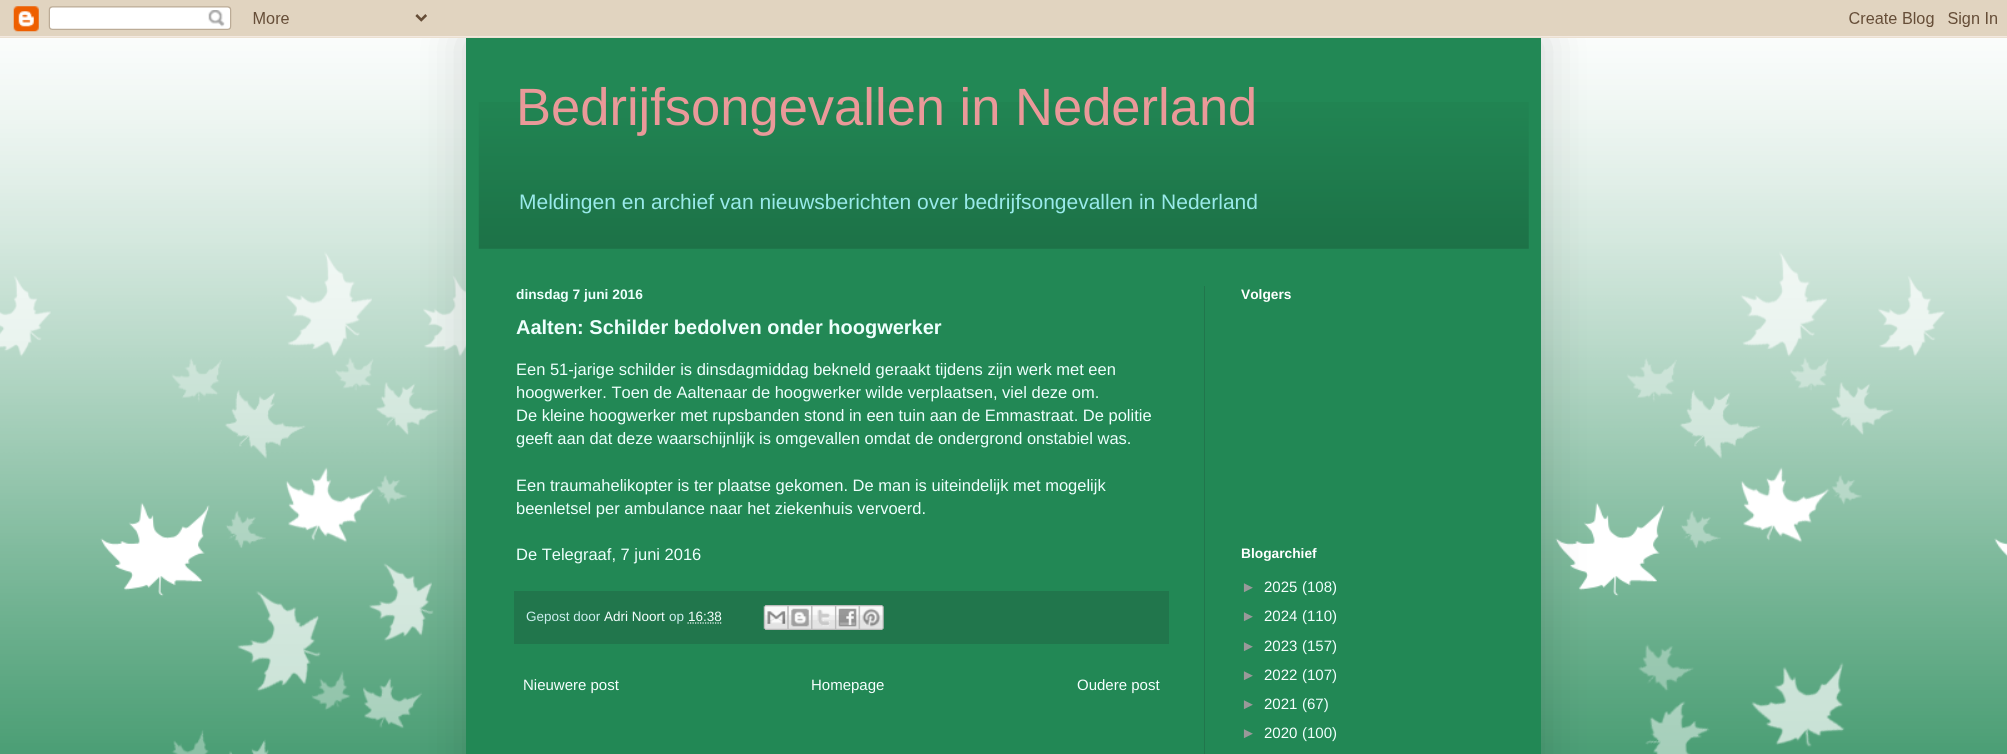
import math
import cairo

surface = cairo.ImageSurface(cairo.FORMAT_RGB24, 2007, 754)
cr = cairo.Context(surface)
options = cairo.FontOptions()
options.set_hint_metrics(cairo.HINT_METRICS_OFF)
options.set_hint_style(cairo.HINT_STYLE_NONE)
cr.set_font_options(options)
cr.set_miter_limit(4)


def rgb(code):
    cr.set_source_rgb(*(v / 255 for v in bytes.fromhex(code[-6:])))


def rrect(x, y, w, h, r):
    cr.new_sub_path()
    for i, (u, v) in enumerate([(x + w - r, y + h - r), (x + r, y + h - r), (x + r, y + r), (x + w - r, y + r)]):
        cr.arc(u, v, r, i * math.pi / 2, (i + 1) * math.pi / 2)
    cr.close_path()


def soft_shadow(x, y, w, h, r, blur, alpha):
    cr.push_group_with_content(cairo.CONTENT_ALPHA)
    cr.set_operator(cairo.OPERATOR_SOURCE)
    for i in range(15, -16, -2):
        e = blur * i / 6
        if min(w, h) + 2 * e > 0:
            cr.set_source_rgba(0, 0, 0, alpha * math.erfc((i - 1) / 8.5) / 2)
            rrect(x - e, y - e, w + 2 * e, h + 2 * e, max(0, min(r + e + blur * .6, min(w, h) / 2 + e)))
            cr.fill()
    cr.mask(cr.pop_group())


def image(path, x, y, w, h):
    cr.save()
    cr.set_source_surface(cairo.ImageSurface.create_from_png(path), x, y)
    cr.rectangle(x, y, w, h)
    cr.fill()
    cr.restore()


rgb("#228855")
cr.paint()
image("img/1.png", 0, 36, 2007, 718)
rgb("#000000")
soft_shadow(466, 38, 1075, 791, 0, 25, 0.15)
image("img/2.png", 0, 0, 2007, 38)
rgb("#228855")
cr.rectangle(466, 38, 1075, 716)
cr.fill()
image("img/3.png", 478, 102, 1051, 147)
rgb("#21764c")
cr.rectangle(1204, 286, 1, 468)
cr.fill()
cr.rectangle(514, 591, 655, 53)
cr.fill()
cr.new_path()
cr.move_to(687.5, 623)
cr.line_to(721.5, 623)
rgb("#f6fffe")
cr.set_line_width(1.2)
cr.set_dash([1.25, 1.25])
cr.stroke()
image("img/4.png", 763, 605, 25, 25)
image("img/5.png", 787, 605, 25, 25)
image("img/6.png", 811, 605, 24, 25)
image("img/7.png", 835, 605, 24, 25)
image("img/8.png", 858, 605, 26, 25)
cr.select_font_face("Liberation Sans")
cr.set_font_size(52.5)
rgb("#ea9999")
cr.move_to(516, 125)
cr.show_text("Bedrijfsongevallen in Nederland")
cr.set_font_size(21)
rgb("#99eaea")
cr.move_to(519, 209)
cr.show_text("Meldingen en archief van nieuwsberichten over bedrijfsongevallen in Nederland")
cr.select_font_face("Liberation Sans", cairo.FONT_SLANT_NORMAL, cairo.FONT_WEIGHT_BOLD)
cr.set_font_size(13.75)
rgb("#eefffd")
cr.move_to(516, 299)
cr.show_text("dinsdag 7 juni 2016")
cr.set_font_size(20)
cr.move_to(516, 334)
cr.show_text("Aalten: Schilder bedolven onder hoogwerker")
cr.select_font_face("Liberation Sans")
cr.set_font_size(16.5)
for x, y, s in [
    (516, 375, "Een 51-jarige schilder is dinsdagmiddag bekneld geraakt tijdens zijn werk met een"),
    (516, 398, "hoogwerker. Toen de Aaltenaar de hoogwerker wilde verplaatsen, viel deze om."),
    (516, 421, "De kleine hoogwerker met rupsbanden stond in een tuin aan de Emmastraat. De politie"),
    (516, 444, "geeft aan dat deze waarschijnlijk is omgevallen omdat de ondergrond onstabiel was."),
    (516, 491, "Een traumahelikopter is ter plaatse gekomen. De man is uiteindelijk met mogelijk"),
    (516, 514, "beenletsel per ambulance naar het ziekenhuis vervoerd."),
    (516, 560, "De Telegraaf, 7 juni 2016"),
]:
    cr.move_to(x, y)
    cr.show_text(s)
cr.set_font_size(13.5)
rgb("#cceeee")
cr.move_to(526, 621)
cr.show_text("Gepost door")
rgb("#f6fffe")
cr.move_to(604, 621)
cr.show_text("Adri Noort")
rgb("#cceeee")
cr.move_to(669, 621)
cr.show_text("op")
rgb("#f6fffe")
cr.move_to(688, 621)
cr.show_text("16:38")
cr.set_font_size(15)
for x, y, s in [
    (523, 690, "Nieuwere post"),
    (811, 690, "Homepage"),
    (1077, 690, "Oudere post"),
]:
    cr.move_to(x, y)
    cr.show_text(s)
cr.select_font_face("Liberation Sans", cairo.FONT_SLANT_NORMAL, cairo.FONT_WEIGHT_BOLD)
cr.set_font_size(13.75)
rgb("#ffffff")
cr.move_to(1241, 299)
cr.show_text("Volgers")
cr.move_to(1241, 558)
cr.show_text("Blogarchief")
cr.select_font_face("Liberation Sans")
cr.set_font_size(15)
rgb("#999999")
cr.move_to(1241, 592)
cr.show_text("►")
rgb("#f6fffe")
cr.move_to(1264, 592)
cr.show_text("2025")
rgb("#eefffd")
cr.move_to(1302, 592)
cr.show_text("(108)")
rgb("#999999")
cr.move_to(1241, 621)
cr.show_text("►")
rgb("#f6fffe")
cr.move_to(1264, 621)
cr.show_text("2024")
rgb("#eefffd")
cr.move_to(1302, 621)
cr.show_text("(110)")
rgb("#999999")
cr.move_to(1241, 651)
cr.show_text("►")
rgb("#f6fffe")
cr.move_to(1264, 651)
cr.show_text("2023")
rgb("#eefffd")
cr.move_to(1302, 651)
cr.show_text("(157)")
rgb("#999999")
cr.move_to(1241, 680)
cr.show_text("►")
rgb("#f6fffe")
cr.move_to(1264, 680)
cr.show_text("2022")
rgb("#eefffd")
cr.move_to(1302, 680)
cr.show_text("(107)")
rgb("#999999")
cr.move_to(1241, 709)
cr.show_text("►")
rgb("#f6fffe")
cr.move_to(1264, 709)
cr.show_text("2021")
rgb("#eefffd")
cr.move_to(1302, 709)
cr.show_text("(67)")
rgb("#999999")
cr.move_to(1241, 738)
cr.show_text("►")
rgb("#f6fffe")
cr.move_to(1264, 738)
cr.show_text("2020")
rgb("#eefffd")
cr.move_to(1302, 738)
cr.show_text("(100)")
surface.write_to_png("page.png")
